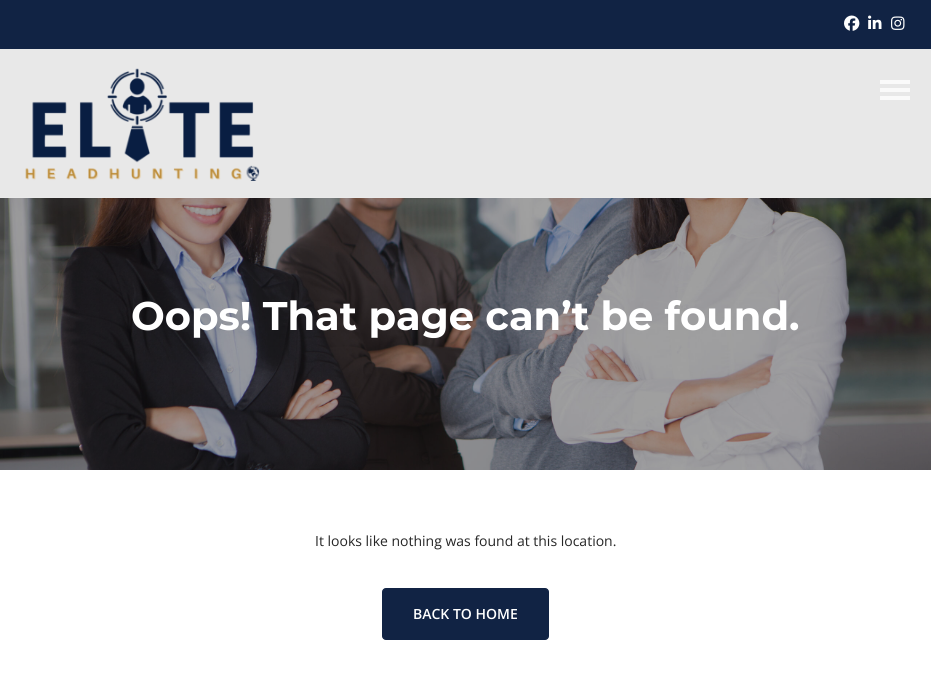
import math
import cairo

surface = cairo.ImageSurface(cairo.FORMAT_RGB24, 931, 679)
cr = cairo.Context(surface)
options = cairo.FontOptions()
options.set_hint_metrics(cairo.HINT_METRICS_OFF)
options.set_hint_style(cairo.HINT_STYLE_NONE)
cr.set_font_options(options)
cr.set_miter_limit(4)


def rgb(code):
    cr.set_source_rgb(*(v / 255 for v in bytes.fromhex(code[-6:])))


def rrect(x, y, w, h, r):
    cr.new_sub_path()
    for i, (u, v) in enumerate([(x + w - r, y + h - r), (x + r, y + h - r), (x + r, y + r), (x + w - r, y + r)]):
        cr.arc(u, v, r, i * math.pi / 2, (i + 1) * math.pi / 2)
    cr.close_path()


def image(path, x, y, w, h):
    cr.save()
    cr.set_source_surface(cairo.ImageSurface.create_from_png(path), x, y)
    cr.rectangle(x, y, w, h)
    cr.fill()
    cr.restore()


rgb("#ffffff")
cr.paint()
for x, y, w, h, color in [
    (0, 49, 931, 148, "#e8e8e8"),
    (0, 197, 931, 1, "#eaeaea"),
    (0, 0, 931, 49, "#112344"),
]:
    rgb(color)
    cr.rectangle(x, y, w, h)
    cr.fill()
image("img/1.png", 844, 15, 16, 16)
image("img/2.png", 868, 15, 14, 14)
image("img/3.png", 891, 16, 14, 14)
image("img/4.png", 25, 68, 235, 113)
for x, y, w, h, color in [
    (880, 80, 30, 4, "#fafafa"),
    (880, 88, 30, 4, "#fafafa"),
    (880, 96, 30, 4, "#fafafa"),
]:
    rgb(color)
    cr.rectangle(x, y, w, h)
    cr.fill()
image("img/5.png", 0, 198, 931, 272)
rgb("#112344")
rrect(382.5, 588.5, 166, 51, 3.5)
cr.fill_preserve()
cr.set_line_width(1)
cr.stroke()
cr.select_font_face("Montserrat", cairo.FONT_SLANT_NORMAL, cairo.FONT_WEIGHT_BOLD)
cr.set_font_size(40)
rgb("#ffffff")
cr.move_to(131, 330)
cr.show_text("Oops! That page can’t be found.")
cr.select_font_face("Open Sans")
cr.set_font_size(14)
rgb("#262626")
cr.move_to(315, 546)
cr.show_text("It looks like nothing was found at this location.")
cr.select_font_face("Open Sans SemiBold")
rgb("#ffffff")
cr.move_to(413, 619)
cr.show_text("BACK TO HOME")
surface.write_to_png("page.png")
